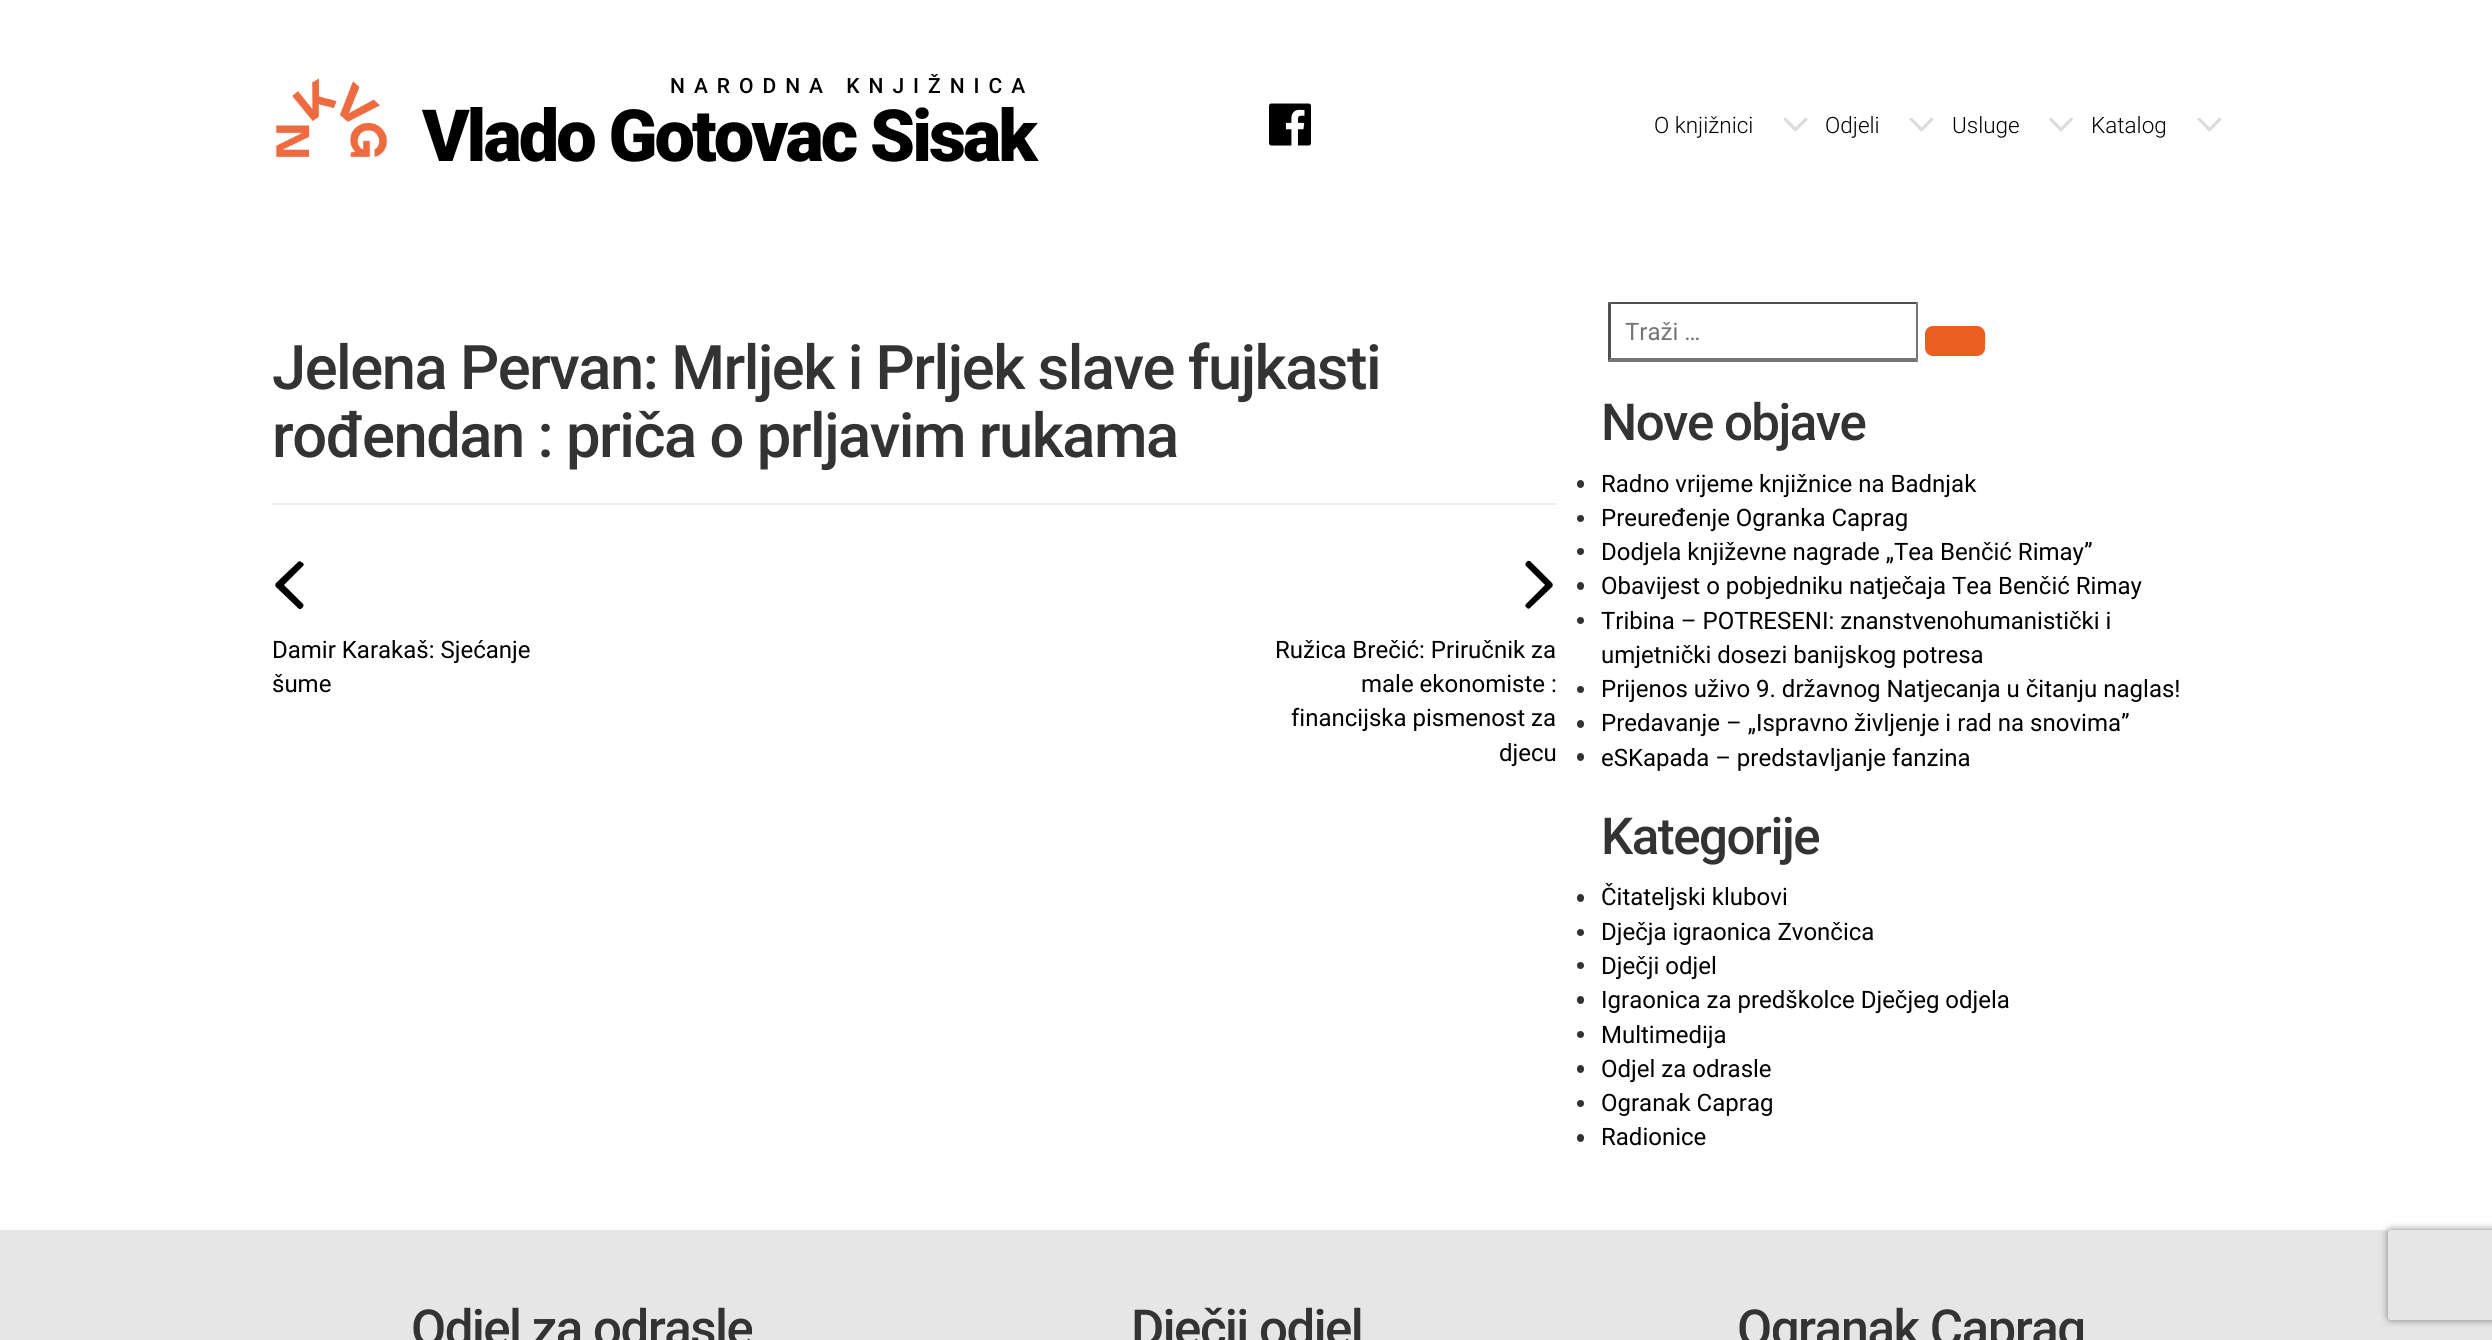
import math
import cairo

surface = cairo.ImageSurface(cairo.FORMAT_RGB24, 2492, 1340)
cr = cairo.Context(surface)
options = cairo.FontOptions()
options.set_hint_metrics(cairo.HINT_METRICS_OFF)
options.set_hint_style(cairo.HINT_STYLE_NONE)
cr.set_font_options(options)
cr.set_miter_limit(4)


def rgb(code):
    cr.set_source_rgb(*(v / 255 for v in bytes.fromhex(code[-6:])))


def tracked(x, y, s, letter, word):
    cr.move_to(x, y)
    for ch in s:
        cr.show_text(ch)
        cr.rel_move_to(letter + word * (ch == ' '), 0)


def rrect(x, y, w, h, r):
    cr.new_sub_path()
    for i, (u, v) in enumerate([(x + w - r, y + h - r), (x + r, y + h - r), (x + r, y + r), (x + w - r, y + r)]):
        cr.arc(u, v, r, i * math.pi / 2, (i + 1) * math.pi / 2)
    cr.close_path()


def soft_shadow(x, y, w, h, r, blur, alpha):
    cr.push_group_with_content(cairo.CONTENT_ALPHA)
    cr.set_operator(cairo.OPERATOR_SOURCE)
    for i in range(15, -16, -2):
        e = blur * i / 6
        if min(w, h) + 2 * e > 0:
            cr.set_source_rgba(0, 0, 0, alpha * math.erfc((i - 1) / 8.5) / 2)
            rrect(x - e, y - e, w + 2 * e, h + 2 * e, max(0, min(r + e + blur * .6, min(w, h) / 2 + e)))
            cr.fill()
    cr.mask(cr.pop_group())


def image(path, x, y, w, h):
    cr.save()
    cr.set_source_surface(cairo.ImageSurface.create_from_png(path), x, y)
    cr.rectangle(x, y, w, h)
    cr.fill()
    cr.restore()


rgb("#ffffff")
cr.paint()
image("img/1.png", 275, 78, 113, 79)
image("img/2.png", 1269, 103, 42, 43)
image("img/3.png", 1783, 117, 25, 15)
image("img/3.png", 1909, 117, 25, 15)
image("img/4.png", 2049, 117, 24, 15)
image("img/3.png", 2197, 117, 25, 15)
rgb("#eeeeee")
cr.rectangle(272, 503, 1285, 2)
cr.fill()
rgb("#000000")
cr.new_path()
cr.move_to(276, 583)
cr.line_to(298, 562)
cr.curve_to(299, 561, 301, 561, 301, 562)
cr.line_to(303, 563)
cr.curve_to(304, 564, 304, 565, 303, 566)
cr.line_to(284, 585)
cr.line_to(303, 604)
cr.curve_to(305, 606, 301, 610, 299, 609)
cr.line_to(276, 587)
cr.curve_to(275, 586, 275, 584, 276, 583)
cr.close_path()
cr.fill()
cr.new_path()
cr.move_to(1552, 587)
cr.line_to(1530, 608)
cr.curve_to(1529, 609, 1528, 609, 1527, 608)
cr.line_to(1526, 607)
cr.curve_to(1525, 606, 1525, 605, 1526, 604)
cr.line_to(1545, 585)
cr.line_to(1526, 566)
cr.curve_to(1524, 564, 1527, 560, 1530, 561)
cr.line_to(1552, 583)
cr.curve_to(1553, 584, 1553, 586, 1552, 587)
cr.close_path()
cr.fill()
rgb("#4f4f4f")
cr.new_path()
cr.move_to(1608, 302)
cr.line_to(1918, 302)
cr.line_to(1916, 304)
cr.line_to(1611, 304)
cr.close_path()
cr.fill()
rgb("#767676")
cr.new_path()
cr.move_to(1918, 302)
cr.line_to(1918, 362)
cr.line_to(1916, 358)
cr.line_to(1916, 304)
cr.close_path()
cr.fill()
cr.new_path()
cr.move_to(1918, 362)
cr.line_to(1608, 362)
cr.line_to(1611, 358)
cr.line_to(1916, 358)
cr.close_path()
cr.fill()
rgb("#4f4f4f")
cr.new_path()
cr.move_to(1608, 362)
cr.line_to(1608, 302)
cr.line_to(1611, 304)
cr.line_to(1611, 358)
cr.close_path()
cr.fill()
rgb("#eb5e20")
rrect(1925, 326, 60, 30, 8)
cr.fill()
rgb("#333333")
rrect(1577, 480, 7, 8, 3.5)
cr.fill()
cr.arc(1580.5, 518.5, 3.5, 0, 2 * math.pi)
cr.fill()
cr.arc(1580.5, 551.5, 3.5, 0, 2 * math.pi)
cr.fill()
rrect(1577, 582, 7, 8, 3.5)
cr.fill()
cr.arc(1580.5, 620.5, 3.5, 0, 2 * math.pi)
cr.fill()
cr.arc(1580.5, 689.5, 3.5, 0, 2 * math.pi)
cr.fill()
rrect(1577, 720, 7, 8, 3.5)
cr.fill()
rrect(1577, 753, 7, 8, 3.5)
cr.fill()
rrect(1577, 894, 7, 8, 3.5)
cr.fill()
cr.arc(1580.5, 932.5, 3.5, 0, 2 * math.pi)
cr.fill()
cr.arc(1580.5, 965.5, 3.5, 0, 2 * math.pi)
cr.fill()
rrect(1577, 996, 7, 8, 3.5)
cr.fill()
cr.arc(1580.5, 1034.5, 3.5, 0, 2 * math.pi)
cr.fill()
rrect(1577, 1065, 7, 8, 3.5)
cr.fill()
cr.arc(1580.5, 1103.5, 3.5, 0, 2 * math.pi)
cr.fill()
rrect(1577, 1134, 7, 8, 3.5)
cr.fill()
rgb("#e6e6e6")
cr.rectangle(0, 1230, 2492, 110)
cr.fill()
cr.save()
cr.set_fill_rule(cairo.FILL_RULE_EVEN_ODD)
cr.new_path()
cr.move_to(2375, 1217)
cr.line_to(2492, 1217)
cr.line_to(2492, 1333)
cr.line_to(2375, 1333)
cr.close_path()
cr.move_to(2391, 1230)
cr.line_to(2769, 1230)
cr.curve_to(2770.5, 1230, 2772, 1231.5, 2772, 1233)
cr.line_to(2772, 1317)
cr.curve_to(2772, 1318.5, 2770.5, 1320, 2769, 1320)
cr.line_to(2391, 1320)
cr.curve_to(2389.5, 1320, 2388, 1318.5, 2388, 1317)
cr.line_to(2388, 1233)
cr.curve_to(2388, 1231.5, 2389.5, 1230, 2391, 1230)
cr.close_path()
cr.clip()
rgb("#808080")
soft_shadow(2388, 1230, 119, 90, 3, 4, 1)
cr.restore()
cr.select_font_face("Roboto Medium")
cr.set_font_size(21)
rgb("#000000")
tracked(670, 93, "NARODNA KNJIŽNICA", 9, 0)
cr.select_font_face("Roboto Black")
cr.set_font_size(72)
tracked(422, 161, "Vlado Gotovac Sisak", -3, 0)
cr.select_font_face("Roboto Light")
cr.set_font_size(22.5)
for x, y, s in [
    (1654, 133, "O knjižnici"),
    (1825, 133, "Odjeli"),
    (1952, 133, "Usluge"),
    (2091, 133, "Katalog"),
]:
    cr.move_to(x, y)
    cr.show_text(s)
cr.select_font_face("Roboto Medium")
cr.set_font_size(61.5)
rgb("#333333")
tracked(272, 389, "Jelena Pervan: Mrljek i Prljek slave fujkasti", -1.5, 0)
tracked(272, 457, "rođendan : priča o prljavim rukama", -1.5, 0)
cr.select_font_face("Roboto")
cr.set_font_size(24)
rgb("#000000")
for x, y, s in [
    (272, 658, "Damir Karakaš: Sjećanje"),
    (272, 692, "šume"),
    (1275, 658, "Ružica Brečić: Priručnik za"),
    (1361, 692, "male ekonomiste :"),
    (1291, 726, "financijska pismenost za"),
    (1499, 761, "djecu"),
]:
    cr.move_to(x, y)
    cr.show_text(s)
rgb("#757575")
cr.move_to(1625, 340)
cr.show_text("Traži …")
cr.select_font_face("Roboto Medium")
cr.set_font_size(51)
rgb("#333333")
tracked(1601, 440, "Nove objave", -1.5, 0)
cr.select_font_face("Roboto")
cr.set_font_size(24)
rgb("#000000")
for x, y, s in [
    (1601, 492, "Radno vrijeme knjižnice na Badnjak"),
    (1601, 526, "Preuređenje Ogranka Caprag"),
    (1601, 560, "Dodjela književne nagrade „Tea Benčić Rimay”"),
    (1601, 594, "Obavijest o pobjedniku natječaja Tea Benčić Rimay"),
    (1601, 629, "Tribina – POTRESENI: znanstvenohumanistički i"),
    (1601, 663, "umjetnički dosezi banijskog potresa"),
    (1601, 697, "Prijenos uživo 9. državnog Natjecanja u čitanju naglas!"),
    (1601, 731, "Predavanje – „Ispravno življenje i rad na snovima”"),
    (1601, 766, "eSKapada – predstavljanje fanzina"),
]:
    cr.move_to(x, y)
    cr.show_text(s)
cr.select_font_face("Roboto Medium")
cr.set_font_size(51)
rgb("#333333")
tracked(1601, 854, "Kategorije", -1.5, 0)
cr.select_font_face("Roboto")
cr.set_font_size(24)
rgb("#000000")
for x, y, s in [
    (1601, 905, "Čitateljski klubovi"),
    (1601, 940, "Dječja igraonica Zvončica"),
    (1601, 974, "Dječji odjel"),
    (1601, 1008, "Igraonica za predškolce Dječjeg odjela"),
    (1601, 1043, "Multimedija"),
    (1601, 1077, "Odjel za odrasle"),
    (1601, 1111, "Ogranak Caprag"),
    (1601, 1145, "Radionice"),
]:
    cr.move_to(x, y)
    cr.show_text(s)
cr.select_font_face("Roboto Medium")
cr.set_font_size(51)
rgb("#333333")
for x, y, s in [
    (411, 1346, "Odjel za odrasle"),
    (1131, 1346, "Dječji odjel"),
    (1737, 1346, "Ogranak Caprag"),
]:
    tracked(x, y, s, -1.5, 0)
surface.write_to_png("page.png")
